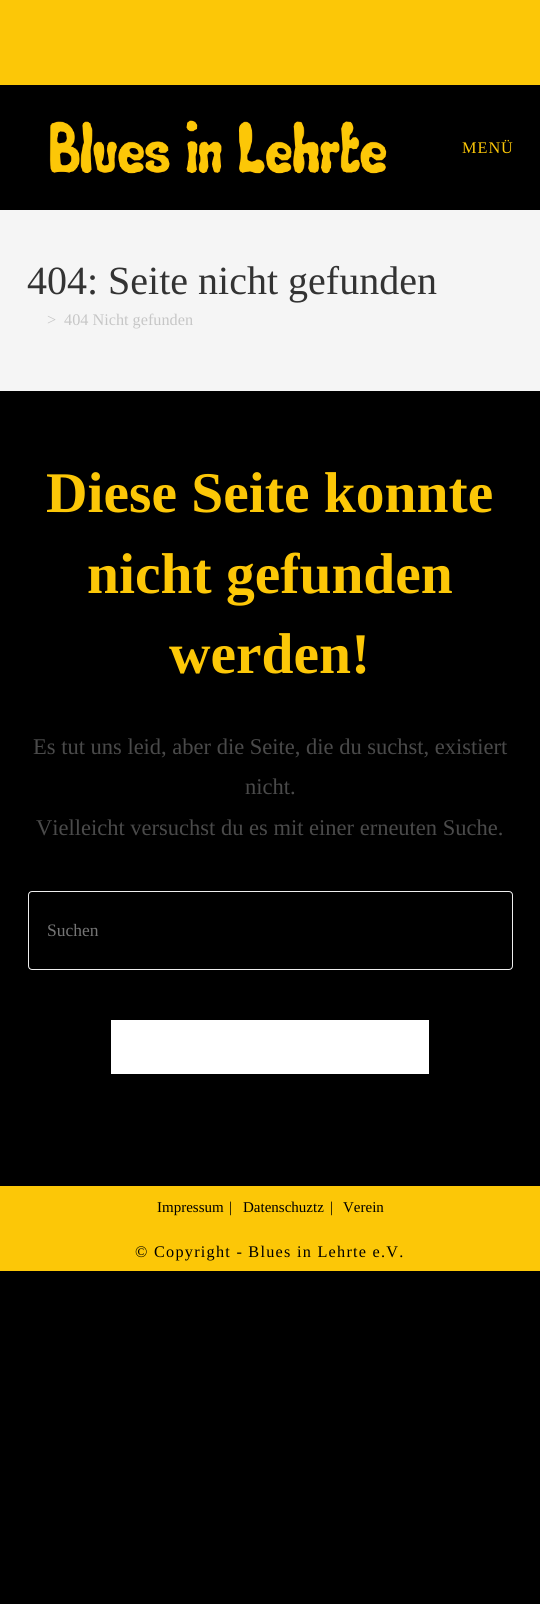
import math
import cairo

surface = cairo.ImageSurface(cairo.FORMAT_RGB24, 540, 1604)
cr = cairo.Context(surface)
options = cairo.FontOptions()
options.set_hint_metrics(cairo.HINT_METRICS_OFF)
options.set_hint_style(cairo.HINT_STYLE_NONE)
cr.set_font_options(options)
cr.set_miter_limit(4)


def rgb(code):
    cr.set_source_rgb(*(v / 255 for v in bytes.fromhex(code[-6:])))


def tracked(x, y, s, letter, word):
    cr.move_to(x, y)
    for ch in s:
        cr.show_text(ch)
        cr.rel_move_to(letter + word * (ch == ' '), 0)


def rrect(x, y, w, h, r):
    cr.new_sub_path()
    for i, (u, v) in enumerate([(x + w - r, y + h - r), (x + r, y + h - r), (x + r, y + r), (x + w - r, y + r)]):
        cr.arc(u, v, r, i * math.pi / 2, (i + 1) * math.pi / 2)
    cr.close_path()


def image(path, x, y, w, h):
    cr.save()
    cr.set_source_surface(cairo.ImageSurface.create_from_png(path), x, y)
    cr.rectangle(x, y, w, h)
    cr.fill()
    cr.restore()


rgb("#000000")
cr.paint()
rgb("#fcc707")
cr.rectangle(0, 0, 540, 85)
cr.fill()
image("img/1.png", 49, 120, 338, 54)
rgb("#f5f5f5")
cr.rectangle(0, 210, 540, 181)
cr.fill()
rrect(28.5, 891.5, 484, 78, 3.5)
rgb("#eeeeee")
cr.set_line_width(1)
cr.stroke()
rgb("#ffffff")
cr.rectangle(111, 1020, 318, 54)
cr.fill()
rgb("#fcc707")
cr.rectangle(0, 1186, 540, 85)
cr.fill()
cr.select_font_face("Liberation Serif")
cr.set_font_size(16.25)
tracked(462, 153, "MENÜ", 1, 0)
cr.set_font_size(40)
rgb("#333333")
cr.move_to(27, 294)
cr.show_text("404: Seite nicht gefunden")
cr.set_font_size(16.25)
rgb("#c6c6c6")
cr.move_to(47, 325)
cr.show_text(">")
cr.move_to(64, 325)
cr.show_text("404 Nicht gefunden")
cr.select_font_face("Liberation Serif", cairo.FONT_SLANT_NORMAL, cairo.FONT_WEIGHT_BOLD)
cr.set_font_size(57.5)
rgb("#fcc707")
for x, y, s in [
    (46, 512, "Diese Seite konnte"),
    (87, 593, "nicht gefunden"),
    (169, 673, "werden!"),
]:
    cr.move_to(x, y)
    cr.show_text(s)
cr.select_font_face("Liberation Serif")
cr.set_font_size(22.5)
rgb("#4a4a4a")
for x, y, s in [
    (33, 754, "Es tut uns leid, aber die Seite, die du suchst, existiert"),
    (245, 794, "nicht."),
    (36, 835, "Vielleicht versuchst du es mit einer erneuten Suche."),
]:
    cr.move_to(x, y)
    cr.show_text(s)
cr.set_font_size(17.5)
rgb("#757575")
cr.move_to(47, 936)
cr.show_text("Suchen")
cr.set_font_size(15)
rgb("#000000")
for x, y, s in [
    (157, 1212, "Impressum"),
    (229, 1212, "|"),
    (243, 1212, "Datenschuztz"),
    (330, 1212, "|"),
    (343, 1212, "Verein"),
]:
    cr.move_to(x, y)
    cr.show_text(s)
cr.set_font_size(16.25)
tracked(135, 1257, "© Copyright - Blues in Lehrte e.V.", 1.25, 0)
surface.write_to_png("page.png")
